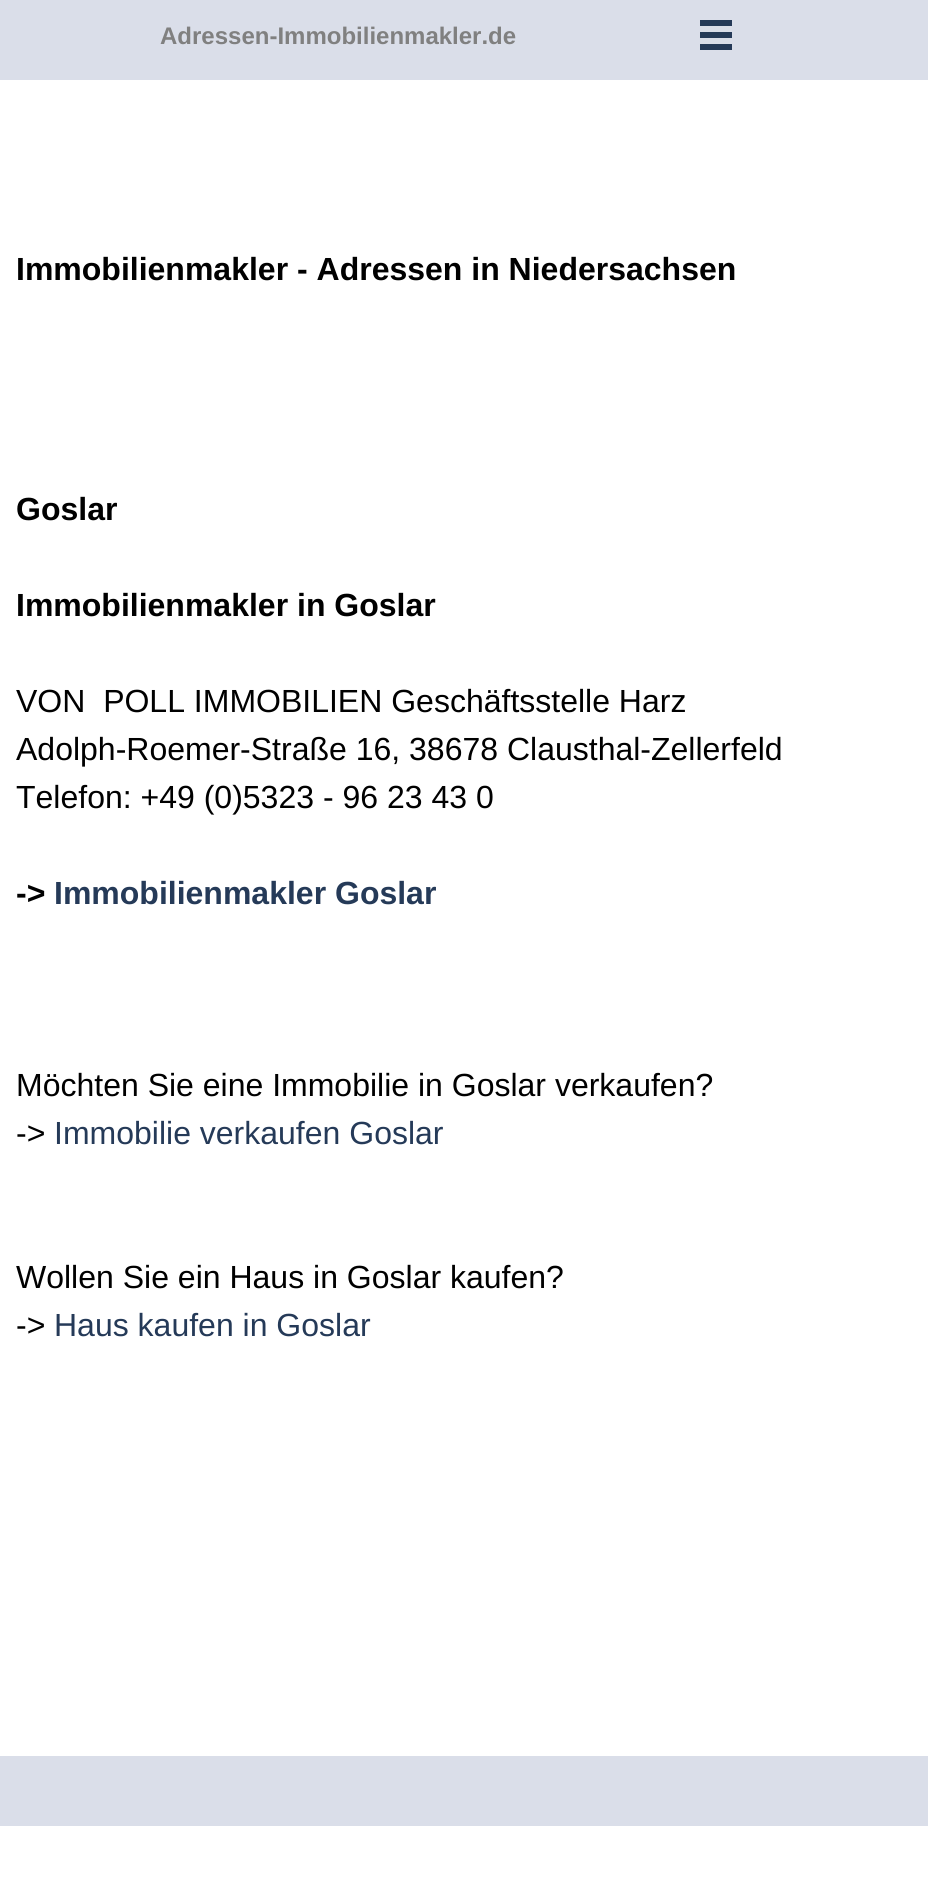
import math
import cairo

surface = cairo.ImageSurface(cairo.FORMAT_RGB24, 928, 1891)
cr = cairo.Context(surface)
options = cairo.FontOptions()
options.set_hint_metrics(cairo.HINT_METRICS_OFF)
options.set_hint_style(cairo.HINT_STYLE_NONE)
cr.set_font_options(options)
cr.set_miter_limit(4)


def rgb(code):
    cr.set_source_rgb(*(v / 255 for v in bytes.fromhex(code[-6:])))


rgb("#ffffff")
cr.paint()
for x, y, w, h, color in [
    (0, 0, 928, 80, "#dadee9"),
    (700, 20, 32, 6, "#253a58"),
    (700, 32, 32, 6, "#253a58"),
    (700, 44, 32, 6, "#253a58"),
    (0, 1756, 928, 70, "#dadee9"),
]:
    rgb(color)
    cr.rectangle(x, y, w, h)
    cr.fill()
cr.select_font_face("Liberation Sans", cairo.FONT_SLANT_NORMAL, cairo.FONT_WEIGHT_BOLD)
cr.set_font_size(24)
rgb("#808080")
cr.move_to(160, 44)
cr.show_text("Adressen-Immobilienmakler.de")
cr.set_font_size(32)
rgb("#000000")
for x, y, s in [
    (16, 280, "Immobilienmakler - Adressen in Niedersachsen"),
    (16, 520, "Goslar"),
    (16, 616, "Immobilienmakler in Goslar"),
]:
    cr.move_to(x, y)
    cr.show_text(s)
cr.select_font_face("Liberation Sans")
for x, y, s in [
    (16, 712, "VON  POLL IMMOBILIEN Geschäftsstelle Harz"),
    (16, 760, "Adolph-Roemer-Straße 16, 38678 Clausthal-Zellerfeld"),
    (16, 808, "Telefon: +49 (0)5323 - 96 23 43 0"),
]:
    cr.move_to(x, y)
    cr.show_text(s)
cr.select_font_face("Liberation Sans", cairo.FONT_SLANT_NORMAL, cairo.FONT_WEIGHT_BOLD)
cr.move_to(16, 904)
cr.show_text("->")
rgb("#253a58")
cr.move_to(54, 904)
cr.show_text("Immobilienmakler Goslar")
cr.select_font_face("Liberation Sans")
rgb("#000000")
cr.move_to(16, 1096)
cr.show_text("Möchten Sie eine Immobilie in Goslar verkaufen?")
cr.move_to(16, 1144)
cr.show_text("->")
rgb("#253a58")
cr.move_to(54, 1144)
cr.show_text("Immobilie verkaufen Goslar")
rgb("#000000")
cr.move_to(16, 1288)
cr.show_text("Wollen Sie ein Haus in Goslar kaufen?")
cr.move_to(16, 1336)
cr.show_text("->")
rgb("#253a58")
cr.move_to(54, 1336)
cr.show_text("Haus kaufen in Goslar")
surface.write_to_png("page.png")
